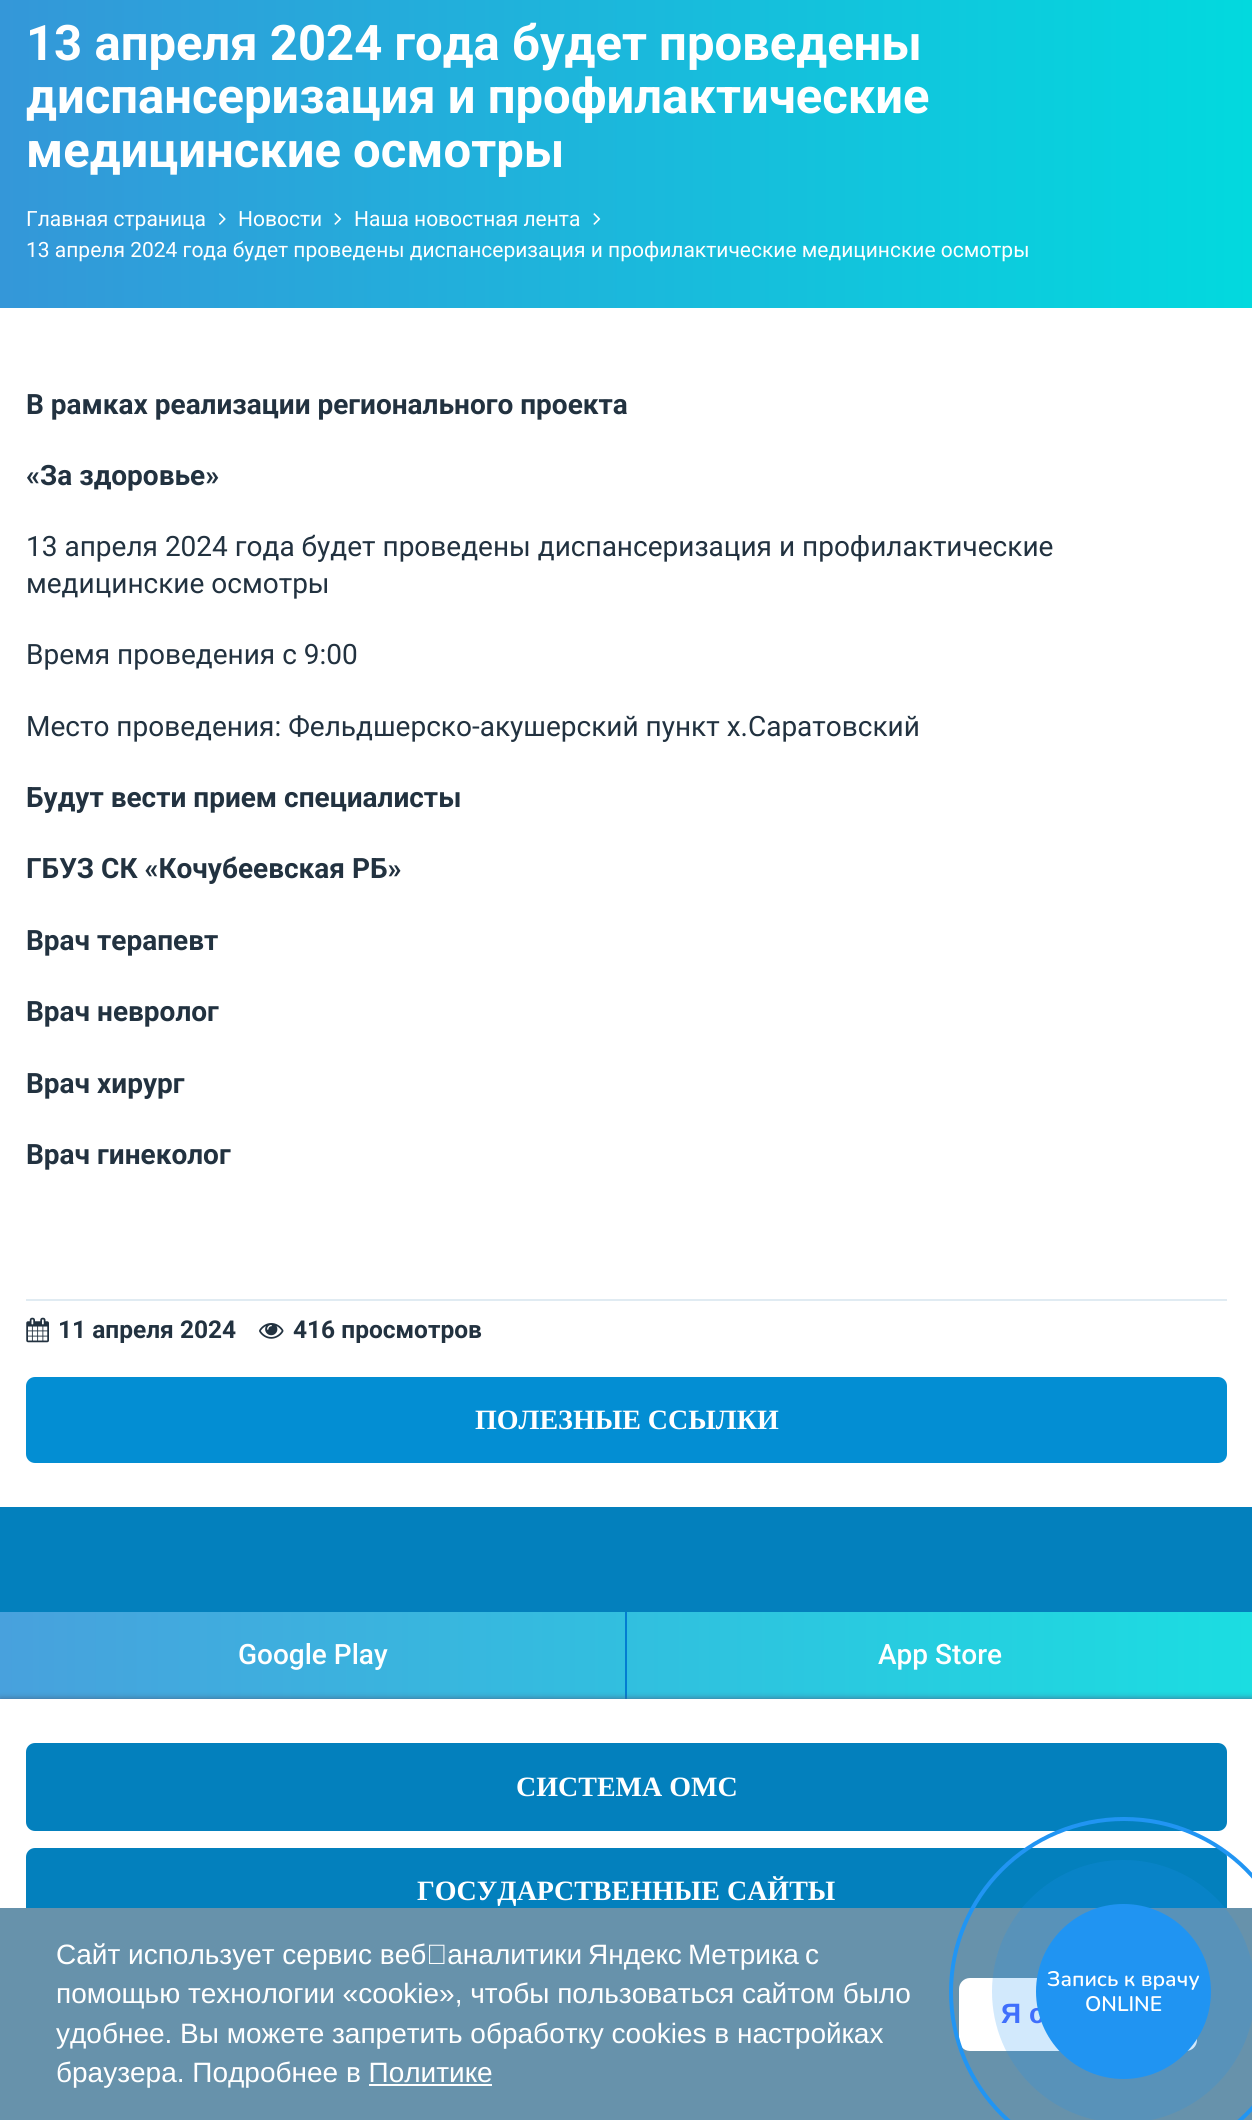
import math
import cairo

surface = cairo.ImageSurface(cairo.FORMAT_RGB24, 1252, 2120)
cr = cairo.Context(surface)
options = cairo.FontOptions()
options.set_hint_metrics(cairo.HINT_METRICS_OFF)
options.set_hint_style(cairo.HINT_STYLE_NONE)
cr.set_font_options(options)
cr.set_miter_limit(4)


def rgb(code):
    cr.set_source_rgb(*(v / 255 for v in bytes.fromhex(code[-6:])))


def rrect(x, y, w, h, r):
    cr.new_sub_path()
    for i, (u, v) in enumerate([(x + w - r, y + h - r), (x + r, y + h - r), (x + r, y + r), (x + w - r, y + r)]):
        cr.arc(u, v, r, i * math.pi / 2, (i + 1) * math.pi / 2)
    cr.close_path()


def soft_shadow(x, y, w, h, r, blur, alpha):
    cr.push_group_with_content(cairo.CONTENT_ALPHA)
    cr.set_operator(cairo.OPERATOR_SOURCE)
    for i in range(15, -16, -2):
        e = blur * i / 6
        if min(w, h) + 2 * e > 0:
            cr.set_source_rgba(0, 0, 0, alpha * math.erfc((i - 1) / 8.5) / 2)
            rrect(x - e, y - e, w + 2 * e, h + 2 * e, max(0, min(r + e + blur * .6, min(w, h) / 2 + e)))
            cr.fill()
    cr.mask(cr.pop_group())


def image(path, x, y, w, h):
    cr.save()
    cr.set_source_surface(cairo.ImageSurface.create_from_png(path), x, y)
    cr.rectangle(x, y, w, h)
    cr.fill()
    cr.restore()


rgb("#ffffff")
cr.paint()
gradient = cairo.LinearGradient(0, 145, 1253, 145)
gradient.add_color_stop_rgba(0, 0.204, 0.592, 0.851, 1)
gradient.add_color_stop_rgba(1, 0.008, 0.851, 0.871, 1)
cr.set_source(gradient)
cr.rectangle(0, 0, 1252, 308)
cr.fill()
image("img/1.png", 219, 213, 7, 12)
image("img/2.png", 334, 213, 8, 12)
image("img/3.png", 593, 213, 8, 12)
rgb("#e0ebf2")
cr.rectangle(26, 1299, 1201, 2)
cr.fill()
image("img/4.png", 26, 1317, 23, 26)
image("img/5.png", 259, 1323, 25, 16)
rgb("#038ed3")
rrect(26, 1377, 1201, 86, 9)
cr.fill()
rgb("#0380bd")
cr.rectangle(0, 1507, 1252, 105)
cr.fill()
gradient = cairo.LinearGradient(0, 1877, 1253, 1877)
gradient.add_color_stop_rgba(0, 0.282, 0.631, 0.867, 1)
gradient.add_color_stop_rgba(1, 0.106, 0.867, 0.882, 1)
cr.set_source(gradient)
cr.rectangle(0, 1612, 1252, 87)
cr.fill()
rgb("#037dd1")
cr.rectangle(625, 1612, 2, 87)
cr.fill()
rgb("#42648a")
soft_shadow(0, 1699, 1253, 279, 0, 3.5, 1)
rgb("#ffffff")
cr.rectangle(0, 1699, 1252, 209)
cr.fill()
rgb("#0380bd")
rrect(26, 1743, 1201, 88, 9)
cr.fill()
rrect(26, 1848, 1201, 86, 9)
cr.fill()
rgb("#6792ab")
cr.rectangle(0, 1908, 1252, 212)
cr.fill()
rgb("#ffffff")
cr.rectangle(369, 2084, 123, 2)
cr.fill()
rrect(959, 1978, 238, 73, 11)
cr.fill()
cr.select_font_face("Roboto", cairo.FONT_SLANT_NORMAL, cairo.FONT_WEIGHT_BOLD)
cr.set_font_size(49)
for x, y, s in [
    (26, 60, "13 апреля 2024 года будет проведены"),
    (26, 113, "диспансеризация и профилактические"),
    (26, 167, "медицинские осмотры"),
]:
    cr.move_to(x, y)
    cr.show_text(s)
cr.select_font_face("Roboto")
cr.set_font_size(21)
for x, y, s in [
    (26, 226, "Главная страница"),
    (238, 226, "Новости"),
    (354, 226, "Наша новостная лента"),
    (26, 257, "13 апреля 2024 года будет проведены диспансеризация и профилактические медицинские осмотры"),
]:
    cr.move_to(x, y)
    cr.show_text(s)
cr.select_font_face("Roboto", cairo.FONT_SLANT_NORMAL, cairo.FONT_WEIGHT_BOLD)
cr.set_font_size(28)
rgb("#223240")
cr.move_to(26, 414)
cr.show_text("В рамках реализации регионального проекта")
cr.move_to(26, 485)
cr.show_text("«За здоровье»")
cr.select_font_face("Roboto")
for x, y, s in [
    (26, 556, "13 апреля 2024 года будет проведены диспансеризация и профилактические"),
    (26, 593, "медицинские осмотры"),
    (26, 664, "Время проведения с 9:00"),
    (26, 736, "Место проведения: Фельдшерско-акушерский пункт х.Саратовский"),
]:
    cr.move_to(x, y)
    cr.show_text(s)
cr.select_font_face("Roboto", cairo.FONT_SLANT_NORMAL, cairo.FONT_WEIGHT_BOLD)
for x, y, s in [
    (26, 807, "Будут вести прием специалисты"),
    (26, 878, "ГБУЗ СК «Кочубеевская РБ»"),
    (26, 950, "Врач терапевт"),
    (26, 1021, "Врач невролог"),
    (26, 1093, "Врач хирург"),
    (26, 1164, "Врач гинеколог"),
]:
    cr.move_to(x, y)
    cr.show_text(s)
cr.set_font_size(24.5)
cr.move_to(58, 1338)
cr.show_text("11 апреля 2024")
cr.move_to(293, 1338)
cr.show_text("416 просмотров")
cr.select_font_face("Liberation Serif", cairo.FONT_SLANT_NORMAL, cairo.FONT_WEIGHT_BOLD)
cr.set_font_size(28)
rgb("#ffffff")
cr.move_to(475, 1429)
cr.show_text("ПОЛЕЗНЫЕ ССЫЛКИ")
cr.select_font_face("Roboto Medium")
cr.move_to(238, 1664)
cr.show_text("Google Play")
cr.move_to(878, 1664)
cr.show_text("App Store")
cr.select_font_face("Liberation Serif", cairo.FONT_SLANT_NORMAL, cairo.FONT_WEIGHT_BOLD)
cr.move_to(516, 1796)
cr.show_text("СИСТЕМА ОМС")
cr.move_to(417, 1900)
cr.show_text("ГОСУДАРСТВЕННЫЕ САЙТЫ")
cr.select_font_face("Liberation Sans")
for x, y, s in [
    (56, 1964, "Сайт использует сервис веб‑аналитики"),
    (588, 1964, "Яндекс"),
    (688, 1964, "Метрика"),
    (805, 1964, "с"),
    (56, 2003, "помощью технологии «cookie», чтобы пользоваться сайтом было"),
    (56, 2043, "удобнее. Вы можете запретить обработку cookies в настройках"),
    (56, 2082, "браузера. Подробнее в Политике"),
]:
    cr.move_to(x, y)
    cr.show_text(s)
cr.select_font_face("Liberation Sans", cairo.FONT_SLANT_NORMAL, cairo.FONT_WEIGHT_BOLD)
rgb("#4867ff")
cr.move_to(1001, 2023)
cr.show_text("Я с")
rgb("#2195f3")
cr.new_path()
cr.arc(1123.5, 1991.5, 87.5, 0, 2 * math.pi)
cr.fill()
cr.set_source_rgba(0.129, 0.584, 0.953, 0.2)
cr.arc(1123.5, 1991.5, 131.5, 0, 2 * math.pi)
cr.fill()
cr.arc(1124, 1992, 173, 0, 2 * math.pi)
rgb("#2195f3")
cr.set_line_width(4)
cr.stroke()
cr.select_font_face("Nunito SemiBold")
cr.set_font_size(21)
rgb("#ffffff")
cr.move_to(1047, 1986)
cr.show_text("Запись к врачу")
cr.move_to(1085, 2011)
cr.show_text("ONLINE")
surface.write_to_png("page.png")
